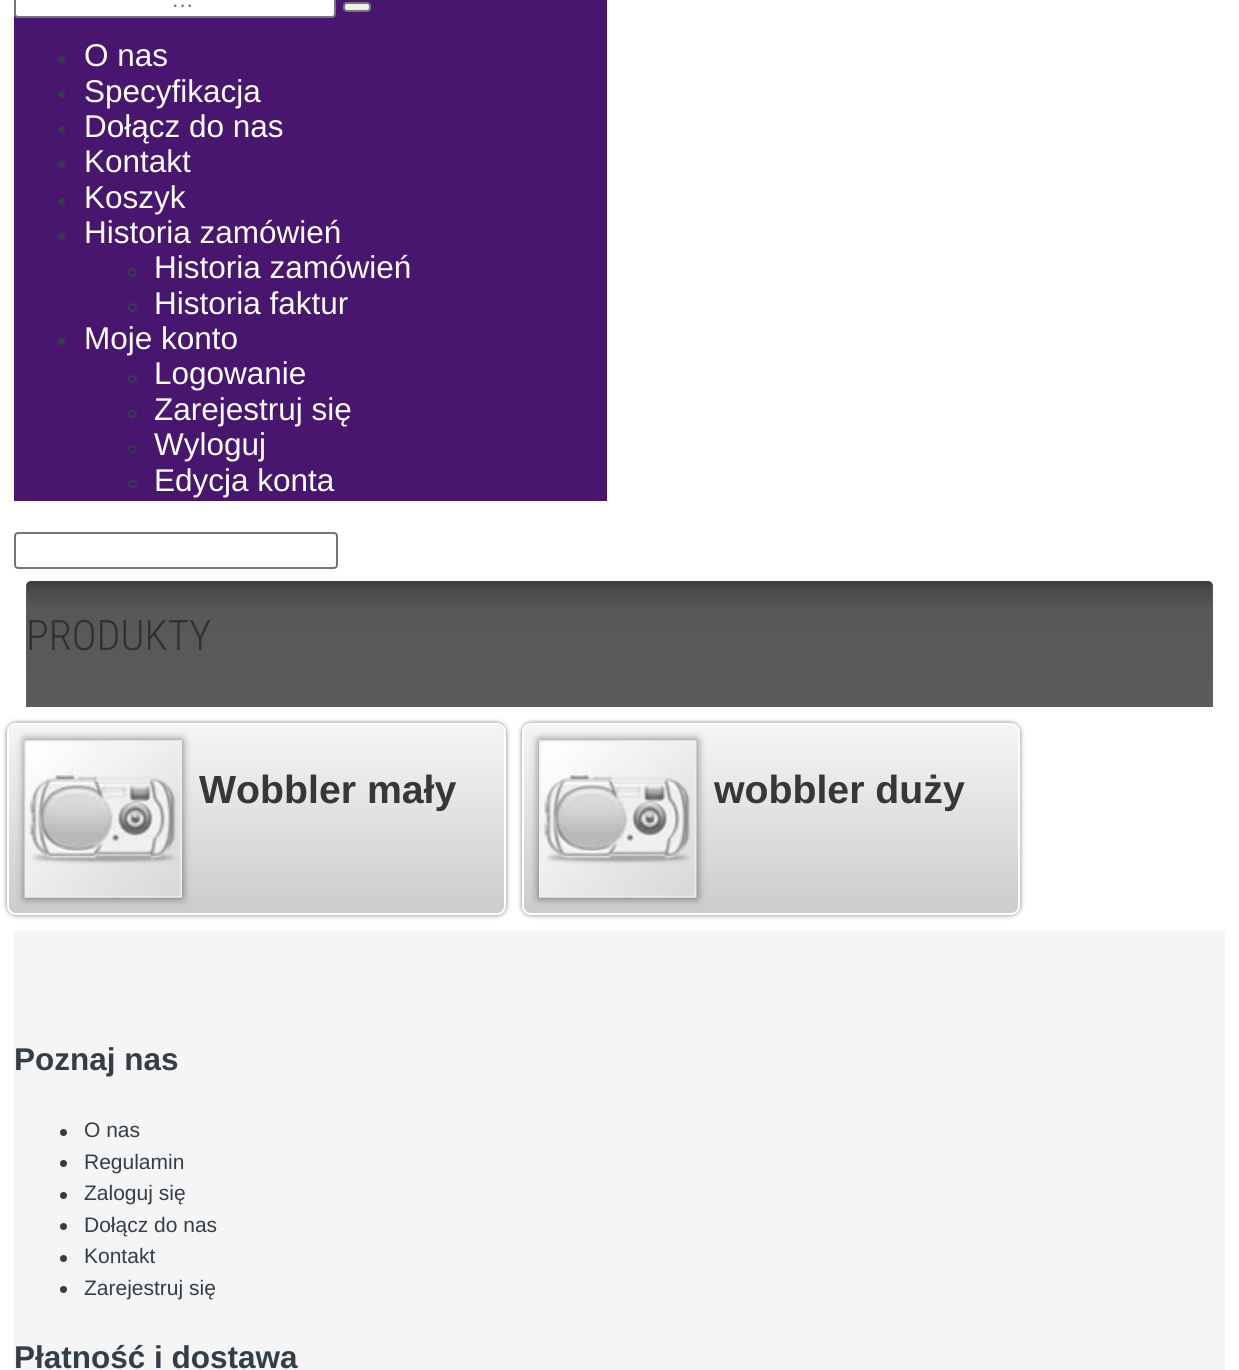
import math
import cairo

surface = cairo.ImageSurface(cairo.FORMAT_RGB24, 1239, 1370)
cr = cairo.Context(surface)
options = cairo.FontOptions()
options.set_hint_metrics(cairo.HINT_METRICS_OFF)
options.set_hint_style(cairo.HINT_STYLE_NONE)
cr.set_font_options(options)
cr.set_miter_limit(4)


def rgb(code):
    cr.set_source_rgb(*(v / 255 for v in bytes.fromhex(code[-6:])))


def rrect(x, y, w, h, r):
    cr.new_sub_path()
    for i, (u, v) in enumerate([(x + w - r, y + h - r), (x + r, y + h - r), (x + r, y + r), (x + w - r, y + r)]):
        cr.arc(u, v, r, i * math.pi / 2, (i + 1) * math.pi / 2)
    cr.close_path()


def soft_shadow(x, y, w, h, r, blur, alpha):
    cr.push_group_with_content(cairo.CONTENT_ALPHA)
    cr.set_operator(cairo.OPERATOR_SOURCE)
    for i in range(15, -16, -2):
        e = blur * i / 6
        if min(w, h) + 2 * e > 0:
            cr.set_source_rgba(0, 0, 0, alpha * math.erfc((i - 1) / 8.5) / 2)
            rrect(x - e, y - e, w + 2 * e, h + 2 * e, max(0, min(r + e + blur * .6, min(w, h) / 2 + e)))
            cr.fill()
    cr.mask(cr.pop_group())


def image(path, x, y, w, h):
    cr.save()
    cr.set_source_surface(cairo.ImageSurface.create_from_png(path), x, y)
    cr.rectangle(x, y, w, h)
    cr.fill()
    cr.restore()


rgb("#ffffff")
cr.paint()
rgb("#48166e")
cr.rectangle(14, 0, 593, 501)
cr.fill()
rgb("#ffffff")
rrect(15, -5, 320, 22, 3)
cr.fill_preserve()
rgb("#767676")
cr.stroke()
rgb("#efefef")
rrect(344, 3, 26, 8, 3)
cr.fill_preserve()
rgb("#767676")
cr.stroke()
rgb("#333e48")
cr.arc(61.5, 59.5, 3.5, 0, 2 * math.pi)
cr.fill()
cr.arc(61.5, 94.5, 3.5, 0, 2 * math.pi)
cr.fill()
cr.arc(61.5, 129.5, 3.5, 0, 2 * math.pi)
cr.fill()
cr.arc(61.5, 164.5, 3.5, 0, 2 * math.pi)
cr.fill()
cr.arc(61.5, 201.5, 3.5, 0, 2 * math.pi)
cr.fill()
cr.arc(61.5, 236.5, 3.5, 0, 2 * math.pi)
cr.fill()
cr.arc(132.5, 272.5, 3.5, 0, 2 * math.pi)
cr.stroke()
cr.arc(132.5, 307.5, 3.5, 0, 2 * math.pi)
cr.stroke()
cr.arc(61.5, 341.5, 3.5, 0, 2 * math.pi)
cr.fill()
rrect(129, 376, 7, 6, 3)
cr.stroke()
rrect(129, 411, 7, 6, 3)
cr.stroke()
rrect(129, 446, 7, 6, 3)
cr.stroke()
rrect(129, 481, 7, 6, 3)
cr.stroke()
rrect(15, 533, 322, 35, 3)
rgb("#767676")
cr.stroke()
rgb("#666666")
rrect(26, 581, 1187, 350, 5)
cr.fill()
image("img/1.png", 26, 581, 1187, 126)
rgb("#ffffff")
cr.rectangle(26, 707, 1187, 224)
cr.fill()
rgb("#000000")
soft_shadow(7, 723, 499, 192, 9, 2.5, 0.5)
gradient = cairo.LinearGradient(9, 725, 9, 914)
gradient.add_color_stop_rgba(0, 0.961, 0.961, 0.961, 1)
gradient.add_color_stop_rgba(1, 0.8, 0.8, 0.8, 1)
cr.set_source(gradient)
rrect(9, 725, 495, 189, 7)
cr.fill()
rrect(8, 724, 497, 190, 8)
rgb("#ffffff")
cr.stroke()
rgb("#000000")
soft_shadow(25, 740, 157, 158, 0, 4.5, 0.5)
image("img/2.png", 24, 740, 158, 158)
soft_shadow(522, 723, 498, 192, 9, 2.5, 0.5)
gradient = cairo.LinearGradient(523, 725, 523, 914)
gradient.add_color_stop_rgba(0, 0.961, 0.961, 0.961, 1)
gradient.add_color_stop_rgba(1, 0.8, 0.8, 0.8, 1)
cr.set_source(gradient)
rrect(523, 725, 496, 189, 7)
cr.fill()
rrect(523, 724, 496, 190, 8)
rgb("#ffffff")
cr.stroke()
rgb("#000000")
soft_shadow(539, 740, 158, 158, 0, 4.5, 0.5)
image("img/3.png", 539, 740, 158, 158)
rgb("#f5f5f5")
cr.rectangle(14, 931, 1211, 439)
cr.fill()
rgb("#333e48")
cr.arc(63.5, 1132.5, 3.5, 0, 2 * math.pi)
cr.fill()
cr.arc(63.5, 1163.5, 3.5, 0, 2 * math.pi)
cr.fill()
cr.arc(63.5, 1195.5, 3.5, 0, 2 * math.pi)
cr.fill()
cr.arc(63.5, 1226.5, 3.5, 0, 2 * math.pi)
cr.fill()
cr.arc(63.5, 1258.5, 3.5, 0, 2 * math.pi)
cr.fill()
cr.arc(63.5, 1289.5, 3.5, 0, 2 * math.pi)
cr.fill()
cr.select_font_face("Liberation Sans")
cr.set_font_size(23)
rgb("#757575")
cr.move_to(171, 7)
cr.show_text("…")
cr.set_font_size(31.5)
rgb("#ffffff")
for x, y, s in [
    (84, 66, "O nas"),
    (84, 102, "Specyfikacja"),
    (84, 137, "Dołącz do nas"),
    (84, 172, "Kontakt"),
    (84, 208, "Koszyk"),
    (84, 243, "Historia zamówień"),
    (154, 278, "Historia zamówień"),
    (154, 314, "Historia faktur"),
    (84, 349, "Moje konto"),
    (154, 384, "Logowanie"),
    (154, 420, "Zarejestruj się"),
    (154, 455, "Wyloguj"),
    (154, 491, "Edycja konta"),
]:
    cr.move_to(x, y)
    cr.show_text(s)
cr.select_font_face("Roboto Condensed Light")
cr.set_font_size(42)
rgb("#303030")
cr.move_to(26, 650)
cr.show_text("PRODUKTY")
cr.select_font_face("Liberation Sans", cairo.FONT_SLANT_NORMAL, cairo.FONT_WEIGHT_BOLD)
cr.set_font_size(39.25)
rgb("#373737")
cr.move_to(199, 803)
cr.show_text("Wobbler mały")
cr.move_to(714, 803)
cr.show_text("wobbler duży")
cr.set_font_size(31.5)
rgb("#333e48")
cr.move_to(14, 1070)
cr.show_text("Poznaj nas")
cr.select_font_face("Liberation Sans")
cr.set_font_size(21)
for x, y, s in [
    (84, 1137, "O nas"),
    (84, 1169, "Regulamin"),
    (84, 1200, "Zaloguj się"),
    (84, 1232, "Dołącz do nas"),
    (84, 1263, "Kontakt"),
    (84, 1295, "Zarejestruj się"),
]:
    cr.move_to(x, y)
    cr.show_text(s)
cr.select_font_face("Liberation Sans", cairo.FONT_SLANT_NORMAL, cairo.FONT_WEIGHT_BOLD)
cr.set_font_size(31.5)
cr.move_to(14, 1368)
cr.show_text("Płatność i dostawa")
surface.write_to_png("page.png")
